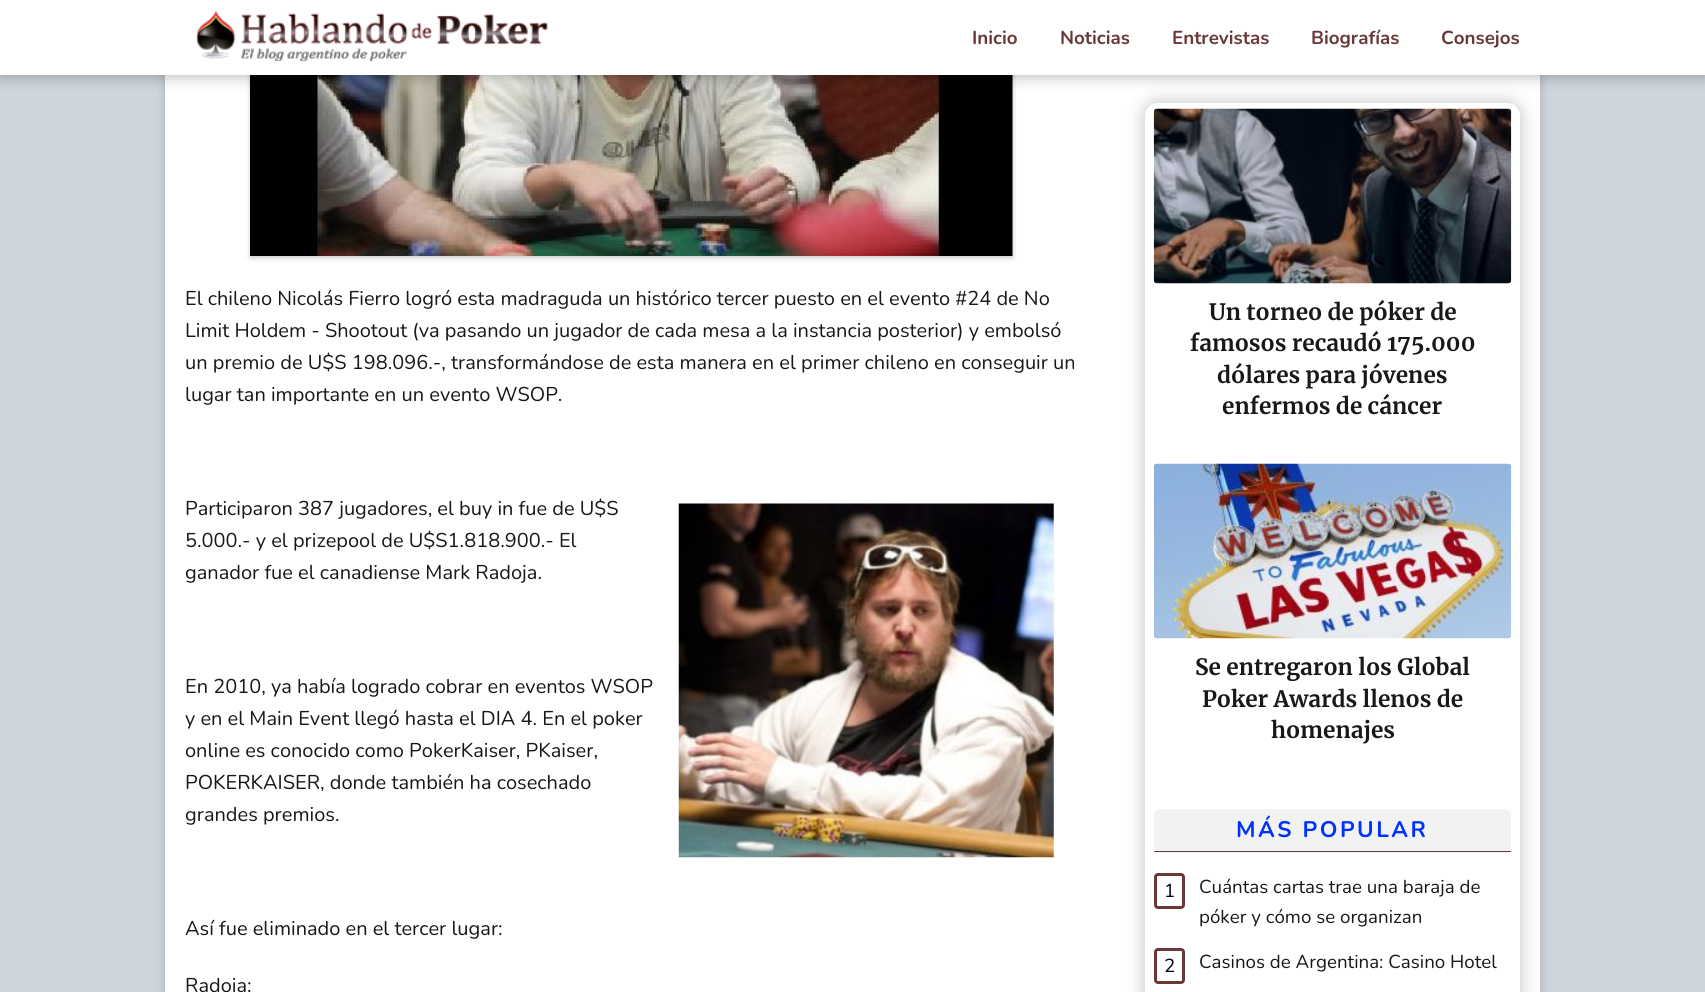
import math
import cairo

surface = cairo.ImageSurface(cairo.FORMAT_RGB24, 1705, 992)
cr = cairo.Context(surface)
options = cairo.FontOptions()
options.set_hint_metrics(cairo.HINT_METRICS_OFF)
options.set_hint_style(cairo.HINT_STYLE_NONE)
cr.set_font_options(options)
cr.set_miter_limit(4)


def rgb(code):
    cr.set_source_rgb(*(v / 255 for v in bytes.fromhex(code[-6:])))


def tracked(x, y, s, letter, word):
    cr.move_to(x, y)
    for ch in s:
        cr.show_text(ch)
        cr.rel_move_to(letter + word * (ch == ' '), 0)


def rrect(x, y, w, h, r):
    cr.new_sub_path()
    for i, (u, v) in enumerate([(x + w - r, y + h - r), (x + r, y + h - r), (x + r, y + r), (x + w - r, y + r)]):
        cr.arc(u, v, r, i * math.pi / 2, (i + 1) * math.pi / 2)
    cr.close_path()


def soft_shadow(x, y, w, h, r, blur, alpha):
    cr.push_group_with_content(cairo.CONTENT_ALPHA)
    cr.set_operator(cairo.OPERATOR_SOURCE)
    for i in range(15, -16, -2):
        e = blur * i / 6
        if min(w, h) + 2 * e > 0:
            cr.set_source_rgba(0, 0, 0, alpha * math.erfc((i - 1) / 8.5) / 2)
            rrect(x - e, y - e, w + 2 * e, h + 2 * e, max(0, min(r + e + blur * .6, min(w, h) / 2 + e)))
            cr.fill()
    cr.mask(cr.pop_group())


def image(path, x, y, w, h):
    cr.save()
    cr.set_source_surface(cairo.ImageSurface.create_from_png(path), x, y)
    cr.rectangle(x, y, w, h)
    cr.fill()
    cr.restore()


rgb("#ced5dd")
cr.paint()
rgb("#000000")
soft_shadow(165, -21, 1375, 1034, 6, 5, 0.2)
rgb("#ffffff")
cr.rectangle(165, 75, 1375, 917)
cr.fill()
rgb("#000000")
soft_shadow(250, -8, 763, 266, 0, 2.5, 0.2)
image("img/2.png", 250, 75, 763, 181)
soft_shadow(0, 1, 1705, 75, 0, 7.5, 0.3)
soft_shadow(1145, 103, 375, 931, 13, 9.5, 0.25)
rgb("#ffffff")
cr.rectangle(0, 0, 1705, 75)
cr.fill()
image("img/1.png", 196, 11, 352, 51)
image("img/3.png", 678, 503, 376, 355)
rrect(1145, 103, 375, 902, 13)
cr.fill()
image("img/4.png", 1153, 108, 359, 176)
image("img/5.png", 1153, 463, 359, 176)
rgb("#f2f2f2")
rrect(1154, 809, 357, 44, 6)
cr.fill()
rgb("#6a3838")
cr.rectangle(1154, 851, 357, 1)
cr.fill()
rrect(1155.5, 874.5, 28, 33, 2.5)
cr.set_line_width(3)
cr.stroke()
rrect(1155.5, 949.5, 28, 33, 2.5)
cr.stroke()
cr.select_font_face("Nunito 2 ExtraLight")
cr.set_font_size(18.75)
for x, y, s in [
    (972, 44, "Inicio"),
    (1060, 44, "Noticias"),
    (1172, 44, "Entrevistas"),
    (1311, 44, "Biografías"),
    (1441, 44, "Consejos"),
]:
    cr.move_to(x, y)
    cr.show_text(s)
cr.select_font_face("Nunito ExtraLight")
cr.set_font_size(20)
rgb("#181818")
for x, y, s in [
    (185, 305, "El chileno Nicolás Fierro logró esta madraguda un histórico tercer puesto en el evento #24 de No"),
    (185, 337, "Limit Holdem - Shootout (va pasando un jugador de cada mesa a la instancia posterior) y embolsó"),
    (185, 369, "un premio de U$S 198.096.-, transformándose de esta manera en el primer chileno en conseguir un"),
    (185, 401, "lugar tan importante en un evento WSOP."),
    (185, 515, "Participaron 387 jugadores, el buy in fue de U$S"),
    (185, 547, "5.000.- y el prizepool de U$S1.818.900.- El"),
    (185, 579, "ganador fue el canadiense Mark Radoja."),
    (185, 693, "En 2010, ya había logrado cobrar en eventos WSOP"),
    (185, 725, "y en el Main Event llegó hasta el DIA 4. En el poker"),
    (185, 757, "online es conocido como PokerKaiser, PKaiser,"),
    (185, 789, "POKERKAISER, donde también ha cosechado"),
    (185, 821, "grandes premios."),
    (185, 935, "Así fue eliminado en el tercer lugar:"),
    (185, 992, "Radoja:"),
]:
    cr.move_to(x, y)
    cr.show_text(s)
cr.select_font_face("Merriweather", cairo.FONT_SLANT_NORMAL, cairo.FONT_WEIGHT_BOLD)
cr.set_font_size(22.5)
for x, y, s in [
    (1209, 320, "Un torneo de póker de"),
    (1190, 351, "famosos recaudó 175.000"),
    (1217, 383, "dólares para jóvenes"),
    (1222, 414, "enfermos de cáncer"),
    (1195, 675, "Se entregaron los Global"),
    (1202, 707, "Poker Awards llenos de"),
    (1271, 738, "homenajes"),
]:
    cr.move_to(x, y)
    cr.show_text(s)
cr.select_font_face("Nunito 2 ExtraLight")
rgb("#0033f9")
tracked(1236, 837, "MÁS POPULAR", 2.5, 0)
cr.select_font_face("Nunito ExtraLight")
cr.set_font_size(18.75)
rgb("#000000")
cr.move_to(1164, 897)
cr.show_text("1")
rgb("#181818")
cr.move_to(1199, 893)
cr.show_text("Cuántas cartas trae una baraja de")
cr.move_to(1199, 923)
cr.show_text("póker y cómo se organizan")
rgb("#000000")
cr.move_to(1164, 972)
cr.show_text("2")
rgb("#181818")
cr.move_to(1199, 968)
cr.show_text("Casinos de Argentina: Casino Hotel")
surface.write_to_png("page.png")
